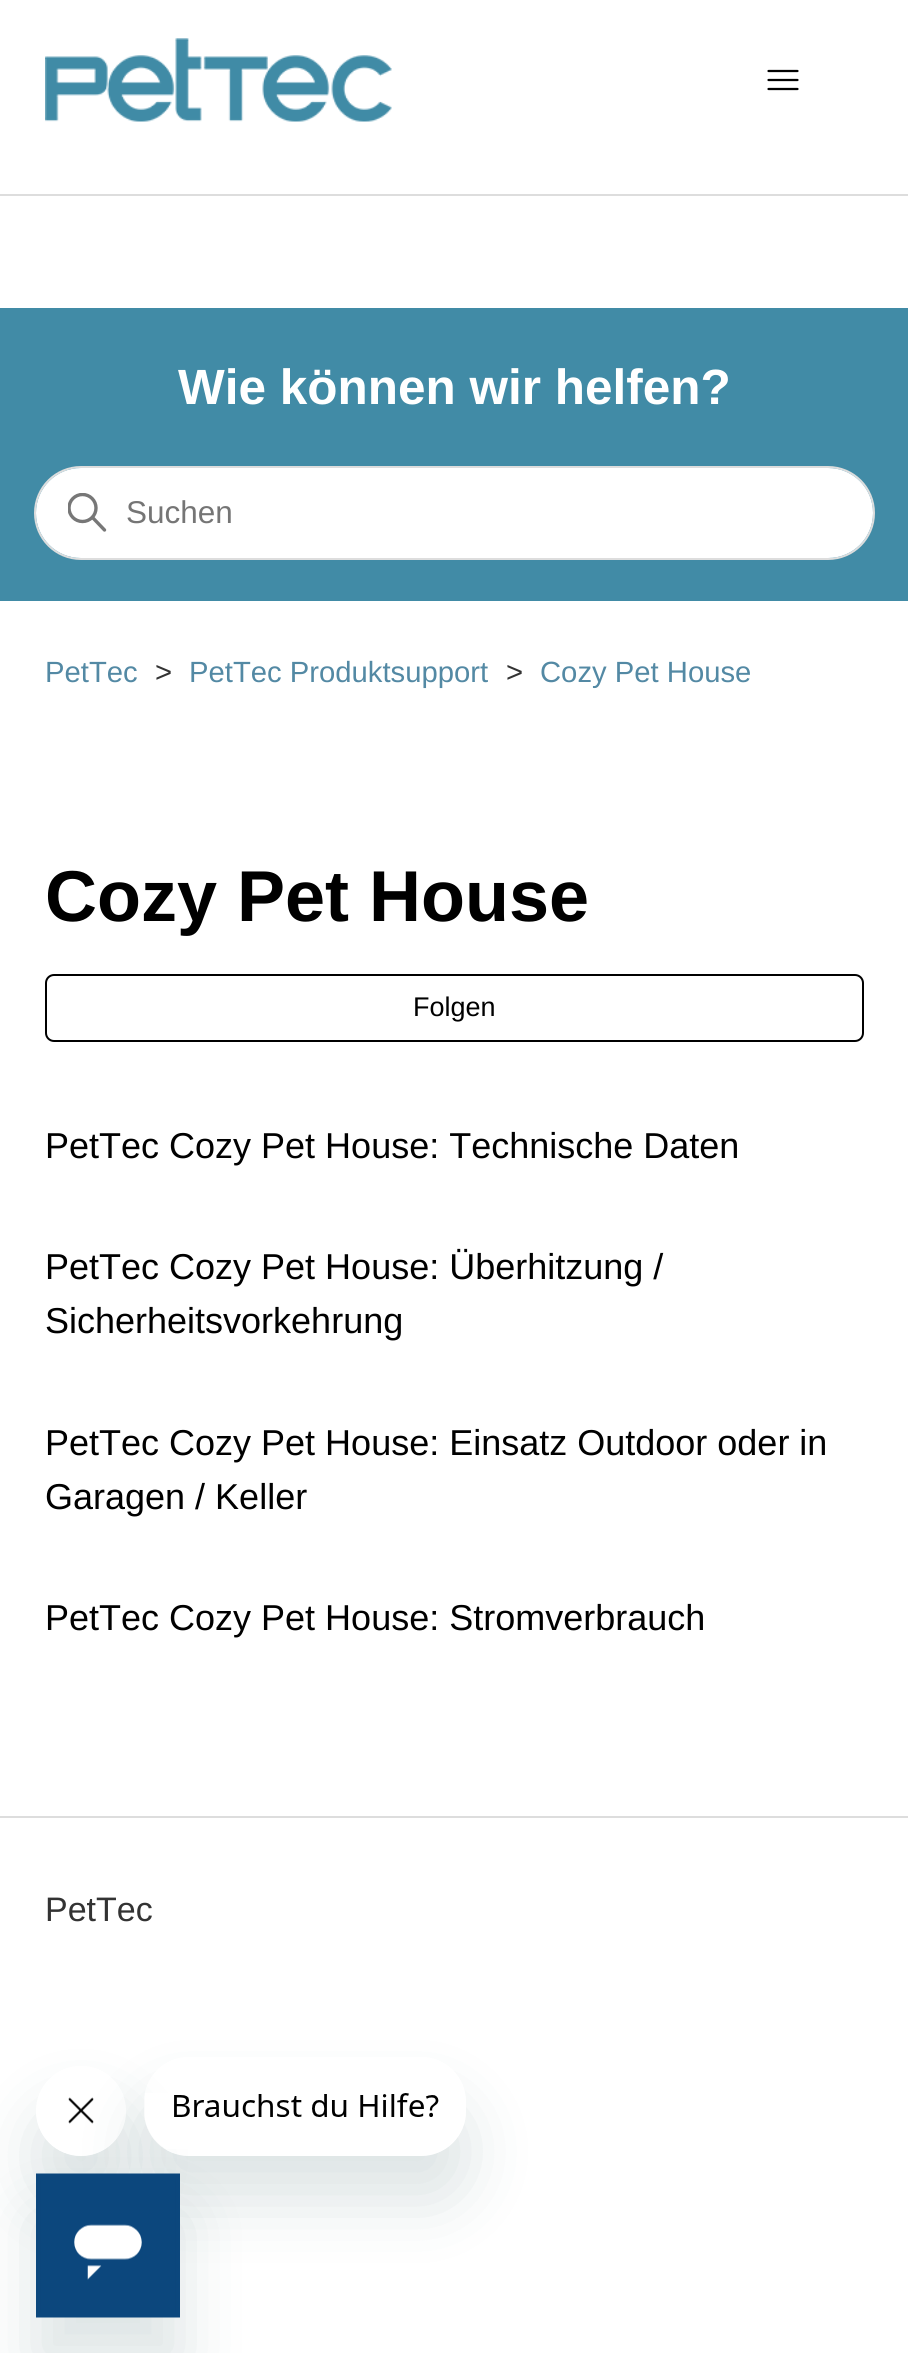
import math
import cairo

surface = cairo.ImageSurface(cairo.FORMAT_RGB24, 908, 2353)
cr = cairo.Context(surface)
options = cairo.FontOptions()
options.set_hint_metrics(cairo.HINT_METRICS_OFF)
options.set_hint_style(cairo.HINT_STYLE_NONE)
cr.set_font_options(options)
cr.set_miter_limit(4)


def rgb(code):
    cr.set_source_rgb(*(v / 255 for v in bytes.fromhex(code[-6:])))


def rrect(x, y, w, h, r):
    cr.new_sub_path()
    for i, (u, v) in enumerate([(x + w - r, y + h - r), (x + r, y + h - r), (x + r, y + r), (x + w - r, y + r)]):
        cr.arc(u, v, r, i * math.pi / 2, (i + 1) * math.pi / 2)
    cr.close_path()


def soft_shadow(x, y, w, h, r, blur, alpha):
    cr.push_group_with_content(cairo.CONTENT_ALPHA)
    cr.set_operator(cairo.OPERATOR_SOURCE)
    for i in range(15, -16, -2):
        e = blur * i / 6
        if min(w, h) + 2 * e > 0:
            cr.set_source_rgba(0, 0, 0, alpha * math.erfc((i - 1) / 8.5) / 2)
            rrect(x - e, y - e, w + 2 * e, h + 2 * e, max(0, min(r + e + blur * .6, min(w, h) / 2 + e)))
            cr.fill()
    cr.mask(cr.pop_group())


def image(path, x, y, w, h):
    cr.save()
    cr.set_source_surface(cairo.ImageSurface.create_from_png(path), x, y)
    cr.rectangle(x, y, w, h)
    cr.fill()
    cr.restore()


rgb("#ffffff")
cr.paint()
image("img/1.png", 45, 38, 347, 84)
cr.new_path()
cr.move_to(768.5, 71)
cr.line_to(797.5, 71)
cr.move_to(768.5, 80)
cr.line_to(797.5, 80)
cr.move_to(768.5, 89)
cr.line_to(797.5, 89)
rgb("#000000")
cr.set_line_width(2.2)
cr.set_line_cap(cairo.LINE_CAP_ROUND)
cr.stroke()
rgb("#dddddd")
cr.rectangle(0, 194, 908, 2)
cr.fill()
rgb("#418ba6")
cr.rectangle(0, 308, 908, 293)
cr.fill()
rrect(35, 467, 839, 92, 46)
rgb("#dddddd")
cr.set_line_width(2)
cr.set_line_cap(cairo.LINE_CAP_BUTT)
cr.stroke()
rgb("#ffffff")
rrect(36, 468, 837, 90, 45)
cr.fill()
cr.save()
cr.rectangle(68, 493, 40, 40)
cr.clip()
cr.arc(82.5, 508, 13.5, 0, 2 * math.pi)
rgb("#777777")
cr.set_line_width(3.4)
cr.stroke()
cr.restore()
cr.new_path()
cr.move_to(104.5, 530)
cr.line_to(93, 518)
rgb("#777777")
cr.set_line_width(3.4)
cr.set_line_cap(cairo.LINE_CAP_ROUND)
cr.stroke()
rrect(46, 975, 817, 66, 8)
rgb("#000000")
cr.set_line_width(2)
cr.set_line_cap(cairo.LINE_CAP_BUTT)
cr.stroke()
rgb("#dddddd")
cr.rectangle(0, 1816, 908, 2)
cr.fill()
cr.save()
cr.set_fill_rule(cairo.FILL_RULE_EVEN_ODD)
cr.new_path()
cr.move_to(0, 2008)
cr.line_to(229, 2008)
cr.line_to(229, 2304)
cr.line_to(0, 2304)
cr.close_path()
cr.move_to(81, 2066)
cr.curve_to(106, 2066, 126, 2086, 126, 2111)
cr.curve_to(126, 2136, 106, 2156, 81, 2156)
cr.curve_to(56, 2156, 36, 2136, 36, 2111)
cr.curve_to(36, 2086, 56, 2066, 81, 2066)
cr.close_path()
cr.clip()
rgb("#17494d")
soft_shadow(36, 2111, 90, 90, 45, 34, 0.15)
cr.restore()
image("img/3.png", 64, 2097, 30, 59)
cr.save()
cr.set_fill_rule(cairo.FILL_RULE_EVEN_ODD)
cr.new_path()
cr.move_to(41, 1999)
cr.line_to(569, 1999)
cr.line_to(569, 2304)
cr.line_to(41, 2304)
cr.close_path()
cr.move_to(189, 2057)
cr.line_to(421, 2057)
cr.curve_to(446, 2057, 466, 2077, 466, 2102)
cr.line_to(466, 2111)
cr.curve_to(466, 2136, 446, 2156, 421, 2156)
cr.line_to(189, 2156)
cr.curve_to(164, 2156, 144, 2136, 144, 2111)
cr.line_to(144, 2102)
cr.curve_to(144, 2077, 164, 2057, 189, 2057)
cr.close_path()
cr.clip()
rgb("#17494d")
soft_shadow(144, 2102, 322, 99, 45, 34, 0.15)
cr.restore()
image("img/2.png", 145, 2093, 294, 56)
rgb("#17494d")
soft_shadow(36, 2219, 144, 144, 0, 34, 0.15)
image("img/4.png", 36, 2173, 144, 145)
cr.select_font_face("Liberation Sans", cairo.FONT_SLANT_NORMAL, cairo.FONT_WEIGHT_BOLD)
cr.set_font_size(49.5)
rgb("#ffffff")
cr.move_to(178, 404)
cr.show_text("Wie können wir helfen?")
cr.select_font_face("Liberation Sans")
cr.set_font_size(31.5)
rgb("#757575")
cr.move_to(126, 523)
cr.show_text("Suchen")
cr.set_font_size(29.25)
rgb("#5389a4")
cr.move_to(45, 682)
cr.show_text("PetTec")
rgb("#333333")
cr.move_to(155, 682)
cr.show_text(">")
rgb("#5389a4")
cr.move_to(189, 682)
cr.show_text("PetTec Produktsupport")
rgb("#333333")
cr.move_to(506, 682)
cr.show_text(">")
rgb("#5389a4")
cr.move_to(540, 682)
cr.show_text("Cozy Pet House")
cr.select_font_face("Liberation Sans", cairo.FONT_SLANT_NORMAL, cairo.FONT_WEIGHT_BOLD)
cr.set_font_size(72)
rgb("#000000")
cr.move_to(45, 921)
cr.show_text("Cozy Pet House")
cr.select_font_face("Liberation Sans")
cr.set_font_size(27)
cr.move_to(413, 1016)
cr.show_text("Folgen")
cr.set_font_size(36)
for x, y, s in [
    (45, 1158, "PetTec Cozy Pet House: Technische Daten"),
    (45, 1279, "PetTec Cozy Pet House: Überhitzung /"),
    (45, 1333, "Sicherheitsvorkehrung"),
    (45, 1455, "PetTec Cozy Pet House: Einsatz Outdoor oder in"),
    (45, 1509, "Garagen / Keller"),
    (45, 1630, "PetTec Cozy Pet House: Stromverbrauch"),
]:
    cr.move_to(x, y)
    cr.show_text(s)
cr.set_font_size(34)
rgb("#333333")
cr.move_to(45, 1921)
cr.show_text("PetTec")
surface.write_to_png("page.png")
